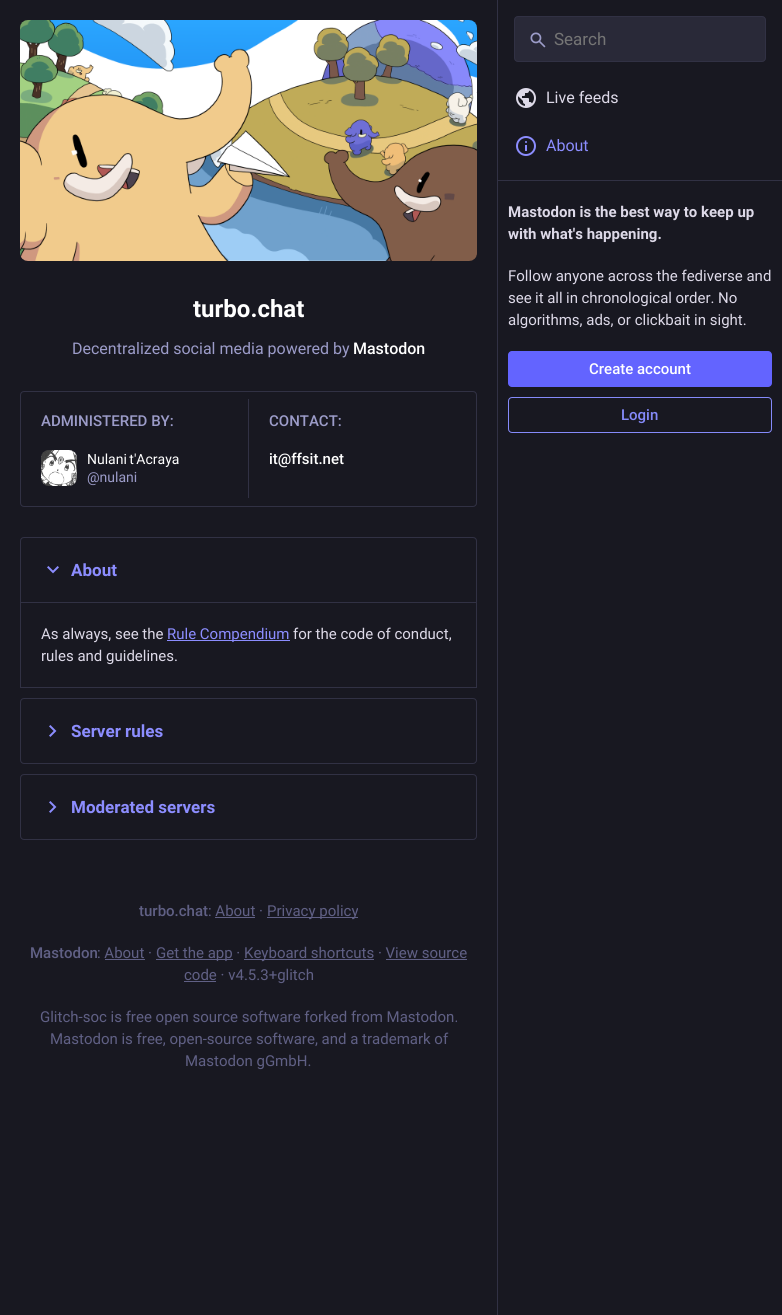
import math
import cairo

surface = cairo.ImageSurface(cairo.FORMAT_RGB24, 782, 1315)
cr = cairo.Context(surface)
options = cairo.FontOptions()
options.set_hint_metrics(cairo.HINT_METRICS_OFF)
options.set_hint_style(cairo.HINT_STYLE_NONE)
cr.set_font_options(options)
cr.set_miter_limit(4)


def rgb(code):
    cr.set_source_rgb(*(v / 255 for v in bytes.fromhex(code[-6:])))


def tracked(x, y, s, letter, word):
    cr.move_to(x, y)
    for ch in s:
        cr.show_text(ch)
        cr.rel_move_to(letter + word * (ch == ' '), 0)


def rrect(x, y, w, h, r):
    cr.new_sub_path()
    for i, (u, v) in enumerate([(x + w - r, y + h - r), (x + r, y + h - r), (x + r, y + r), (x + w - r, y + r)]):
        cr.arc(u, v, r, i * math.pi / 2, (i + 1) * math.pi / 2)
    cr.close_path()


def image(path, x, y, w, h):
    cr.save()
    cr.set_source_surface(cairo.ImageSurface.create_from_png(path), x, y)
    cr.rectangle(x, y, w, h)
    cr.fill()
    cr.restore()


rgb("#181821")
cr.paint()
rgb("#313144")
cr.rectangle(497, 0, 1, 1315)
cr.fill()
rgb("#292938")
rrect(514.5, 16.5, 251, 45, 3.5)
cr.fill_preserve()
rgb("#313144")
cr.set_line_width(1)
cr.stroke()
image("img/1.png", 530, 32, 16, 16)
image("img/2.png", 516, 88, 20, 20)
image("img/3.png", 516, 136, 20, 20)
cr.rectangle(498, 180, 284, 1)
cr.fill()
rgb("#6364ff")
rrect(508, 351, 264, 36, 4)
cr.fill()
rrect(508.5, 397.5, 263, 35, 3.5)
rgb("#858afa")
cr.stroke()
image("img/4.png", 20, 20, 457, 241)
rrect(20.5, 391.5, 456, 115, 3.5)
rgb("#313144")
cr.stroke()
rgb("#20202c")
rrect(41, 450, 36, 36, 8)
cr.fill()
image("img/5.png", 41, 450, 36, 36)
rgb("#313144")
cr.rectangle(248, 399, 1, 99)
cr.fill()
cr.new_path()
cr.move_to(24, 537.5)
cr.line_to(473, 537.5)
cr.curve_to(475, 537.5, 476.5, 539, 476.5, 541)
cr.line_to(476.5, 602.5)
cr.line_to(20.5, 602.5)
cr.line_to(20.5, 541)
cr.curve_to(20.5, 539, 22, 537.5, 24, 537.5)
cr.close_path()
cr.stroke()
image("img/6.png", 47, 566, 12, 8)
for x, y, w, h, color in [
    (476, 603, 1, 85, "#313144"),
    (20, 687, 457, 1, "#313144"),
    (20, 603, 1, 85, "#313144"),
    (167, 640, 123, 1, "#8c8dff"),
]:
    rgb(color)
    cr.rectangle(x, y, w, h)
    cr.fill()
rrect(20.5, 698.5, 456, 65, 3.5)
rgb("#313144")
cr.stroke()
image("img/7.png", 49, 725, 8, 12)
rrect(20.5, 774.5, 456, 65, 3.5)
cr.stroke()
image("img/7.png", 49, 801, 8, 12)
for x, y, w, h, color in [
    (267, 917, 91, 1, "#606085"),
    (215, 917, 40, 1, "#606085"),
    (156, 959, 77, 1, "#606085"),
    (244, 959, 130, 1, "#606085"),
    (105, 959, 40, 1, "#606085"),
    (386, 959, 81, 1, "#606085"),
    (184, 981, 32, 1, "#606085"),
]:
    rgb(color)
    cr.rectangle(x, y, w, h)
    cr.fill()
cr.select_font_face("Roboto")
cr.set_font_size(17)
rgb("#757575")
cr.move_to(554, 45)
cr.show_text("Search")
cr.set_font_size(16)
rgb("#ddd9e8")
cr.move_to(546, 103)
cr.show_text("Live feeds")
rgb("#8c8dff")
cr.move_to(546, 151)
cr.show_text("About")
cr.select_font_face("Roboto", cairo.FONT_SLANT_NORMAL, cairo.FONT_WEIGHT_BOLD)
cr.set_font_size(15)
rgb("#ddd9e8")
cr.move_to(508, 217)
cr.show_text("Mastodon is the best way to keep up")
cr.move_to(508, 239)
cr.show_text("with what's happening.")
cr.select_font_face("Roboto")
cr.move_to(508, 281)
cr.show_text("Follow anyone across the fediverse and")
tracked(508, 303, "see it all in chronological order. No", 0, -0.25)
cr.move_to(508, 325)
cr.show_text("algorithms, ads, or clickbait in sight.")
cr.select_font_face("Roboto Medium")
rgb("#ffffff")
cr.move_to(589, 374)
cr.show_text("Create account")
rgb("#858afa")
cr.move_to(621, 420)
cr.show_text("Login")
cr.select_font_face("Roboto", cairo.FONT_SLANT_NORMAL, cairo.FONT_WEIGHT_BOLD)
cr.set_font_size(24)
rgb("#ffffff")
cr.move_to(193, 317)
cr.show_text("turbo.chat")
cr.select_font_face("Roboto")
cr.set_font_size(16)
rgb("#9c9cc9")
cr.move_to(72, 354)
cr.show_text("Decentralized social media powered by")
cr.select_font_face("Roboto Medium")
rgb("#ffffff")
cr.move_to(353, 354)
cr.show_text("Mastodon")
cr.set_font_size(15)
rgb("#9c9cc9")
cr.move_to(41, 426)
cr.show_text("ADMINISTERED BY:")
cr.select_font_face("Roboto")
cr.set_font_size(14)
rgb("#ffffff")
tracked(87, 464, "Nulani t'Acraya", 0, -1)
rgb("#9c9cc9")
cr.move_to(87, 482)
cr.show_text("@nulani")
cr.select_font_face("Roboto Medium")
cr.set_font_size(15)
cr.move_to(269, 426)
cr.show_text("CONTACT:")
rgb("#ffffff")
cr.move_to(269, 464)
cr.show_text("it@ffsit.net")
cr.select_font_face("Roboto", cairo.FONT_SLANT_NORMAL, cairo.FONT_WEIGHT_BOLD)
cr.set_font_size(17)
rgb("#8c8dff")
cr.move_to(71, 576)
cr.show_text("About")
cr.select_font_face("Roboto")
cr.set_font_size(15)
rgb("#ddd9e8")
cr.move_to(41, 639)
cr.show_text("As always, see the")
rgb("#8c8dff")
cr.move_to(167, 639)
cr.show_text("Rule Compendium")
rgb("#ddd9e8")
cr.move_to(293, 639)
cr.show_text("for the code of conduct,")
cr.move_to(41, 661)
cr.show_text("rules and guidelines.")
cr.select_font_face("Roboto", cairo.FONT_SLANT_NORMAL, cairo.FONT_WEIGHT_BOLD)
cr.set_font_size(17)
rgb("#8c8dff")
cr.move_to(71, 737)
cr.show_text("Server rules")
cr.move_to(71, 813)
cr.show_text("Moderated servers")
cr.select_font_face("Roboto Medium")
cr.set_font_size(15)
rgb("#606085")
cr.move_to(139, 916)
cr.show_text("turbo.chat")
cr.select_font_face("Roboto")
cr.move_to(208, 916)
cr.show_text(": About ·")
cr.move_to(267, 916)
cr.show_text("Privacy policy")
cr.select_font_face("Roboto Medium")
cr.move_to(30, 958)
cr.show_text("Mastodon")
cr.select_font_face("Roboto")
for x, y, s in [
    (97, 958, ": About ·"),
    (156, 958, "Get the app ·"),
    (244, 958, "Keyboard shortcuts · View source"),
    (184, 980, "code · v4.5.3+glitch"),
    (40, 1022, "Glitch-soc is free open source software forked from Mastodon."),
    (50, 1044, "Mastodon is free, open-source software, and a trademark of"),
    (185, 1066, "Mastodon gGmbH."),
]:
    cr.move_to(x, y)
    cr.show_text(s)
surface.write_to_png("page.png")
